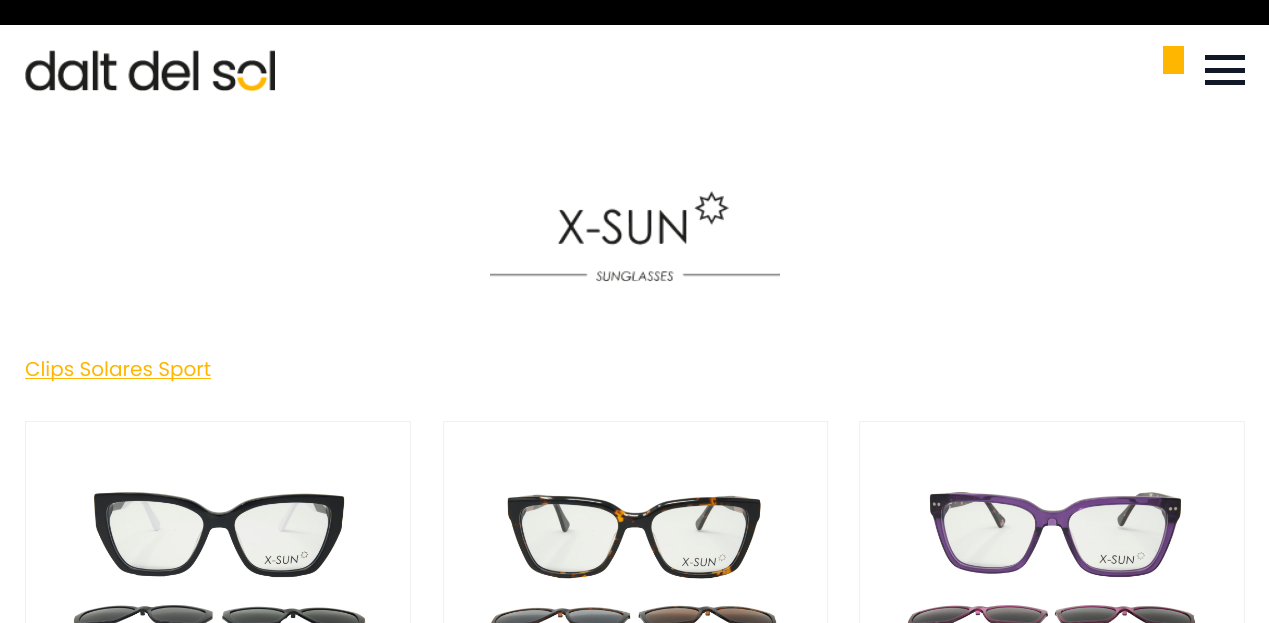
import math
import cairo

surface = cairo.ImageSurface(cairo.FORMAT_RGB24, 1269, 623)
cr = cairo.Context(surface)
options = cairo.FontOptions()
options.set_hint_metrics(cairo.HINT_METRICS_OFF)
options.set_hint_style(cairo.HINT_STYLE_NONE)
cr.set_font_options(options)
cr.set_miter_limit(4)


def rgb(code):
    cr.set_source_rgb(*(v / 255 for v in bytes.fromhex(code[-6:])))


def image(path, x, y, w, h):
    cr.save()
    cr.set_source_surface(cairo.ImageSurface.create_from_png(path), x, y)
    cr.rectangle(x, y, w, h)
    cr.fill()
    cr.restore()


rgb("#ffffff")
cr.paint()
rgb("#000000")
cr.rectangle(0, 0, 1269, 25)
cr.fill()
image("img/1.png", 25, 50, 250, 42)
for x, y, w, h, color in [
    (1163, 46, 21, 28, "#ffb600"),
    (1205, 68, 40, 5, "#111827"),
    (1205, 55, 40, 5, "#111827"),
    (1205, 80, 40, 5, "#111827"),
]:
    rgb(color)
    cr.rectangle(x, y, w, h)
    cr.fill()
image("img/2.png", 490, 191, 290, 91)
rgb("#ffb600")
cr.rectangle(25, 378, 186, 1)
cr.fill()
cr.rectangle(25.5, 421.5, 385, 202)
rgb("#eff0f0")
cr.set_line_width(1)
cr.stroke()
image("img/3.png", 73, 492, 293, 131)
cr.rectangle(443.5, 421.5, 384, 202)
cr.stroke()
image("img/4.png", 491, 494, 286, 129)
cr.rectangle(859.5, 421.5, 385, 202)
cr.stroke()
image("img/5.png", 907, 492, 289, 131)
cr.select_font_face("Poppins")
cr.set_font_size(20)
rgb("#ffb600")
cr.move_to(25, 376)
cr.show_text("Clips Solares Sport")
surface.write_to_png("page.png")
